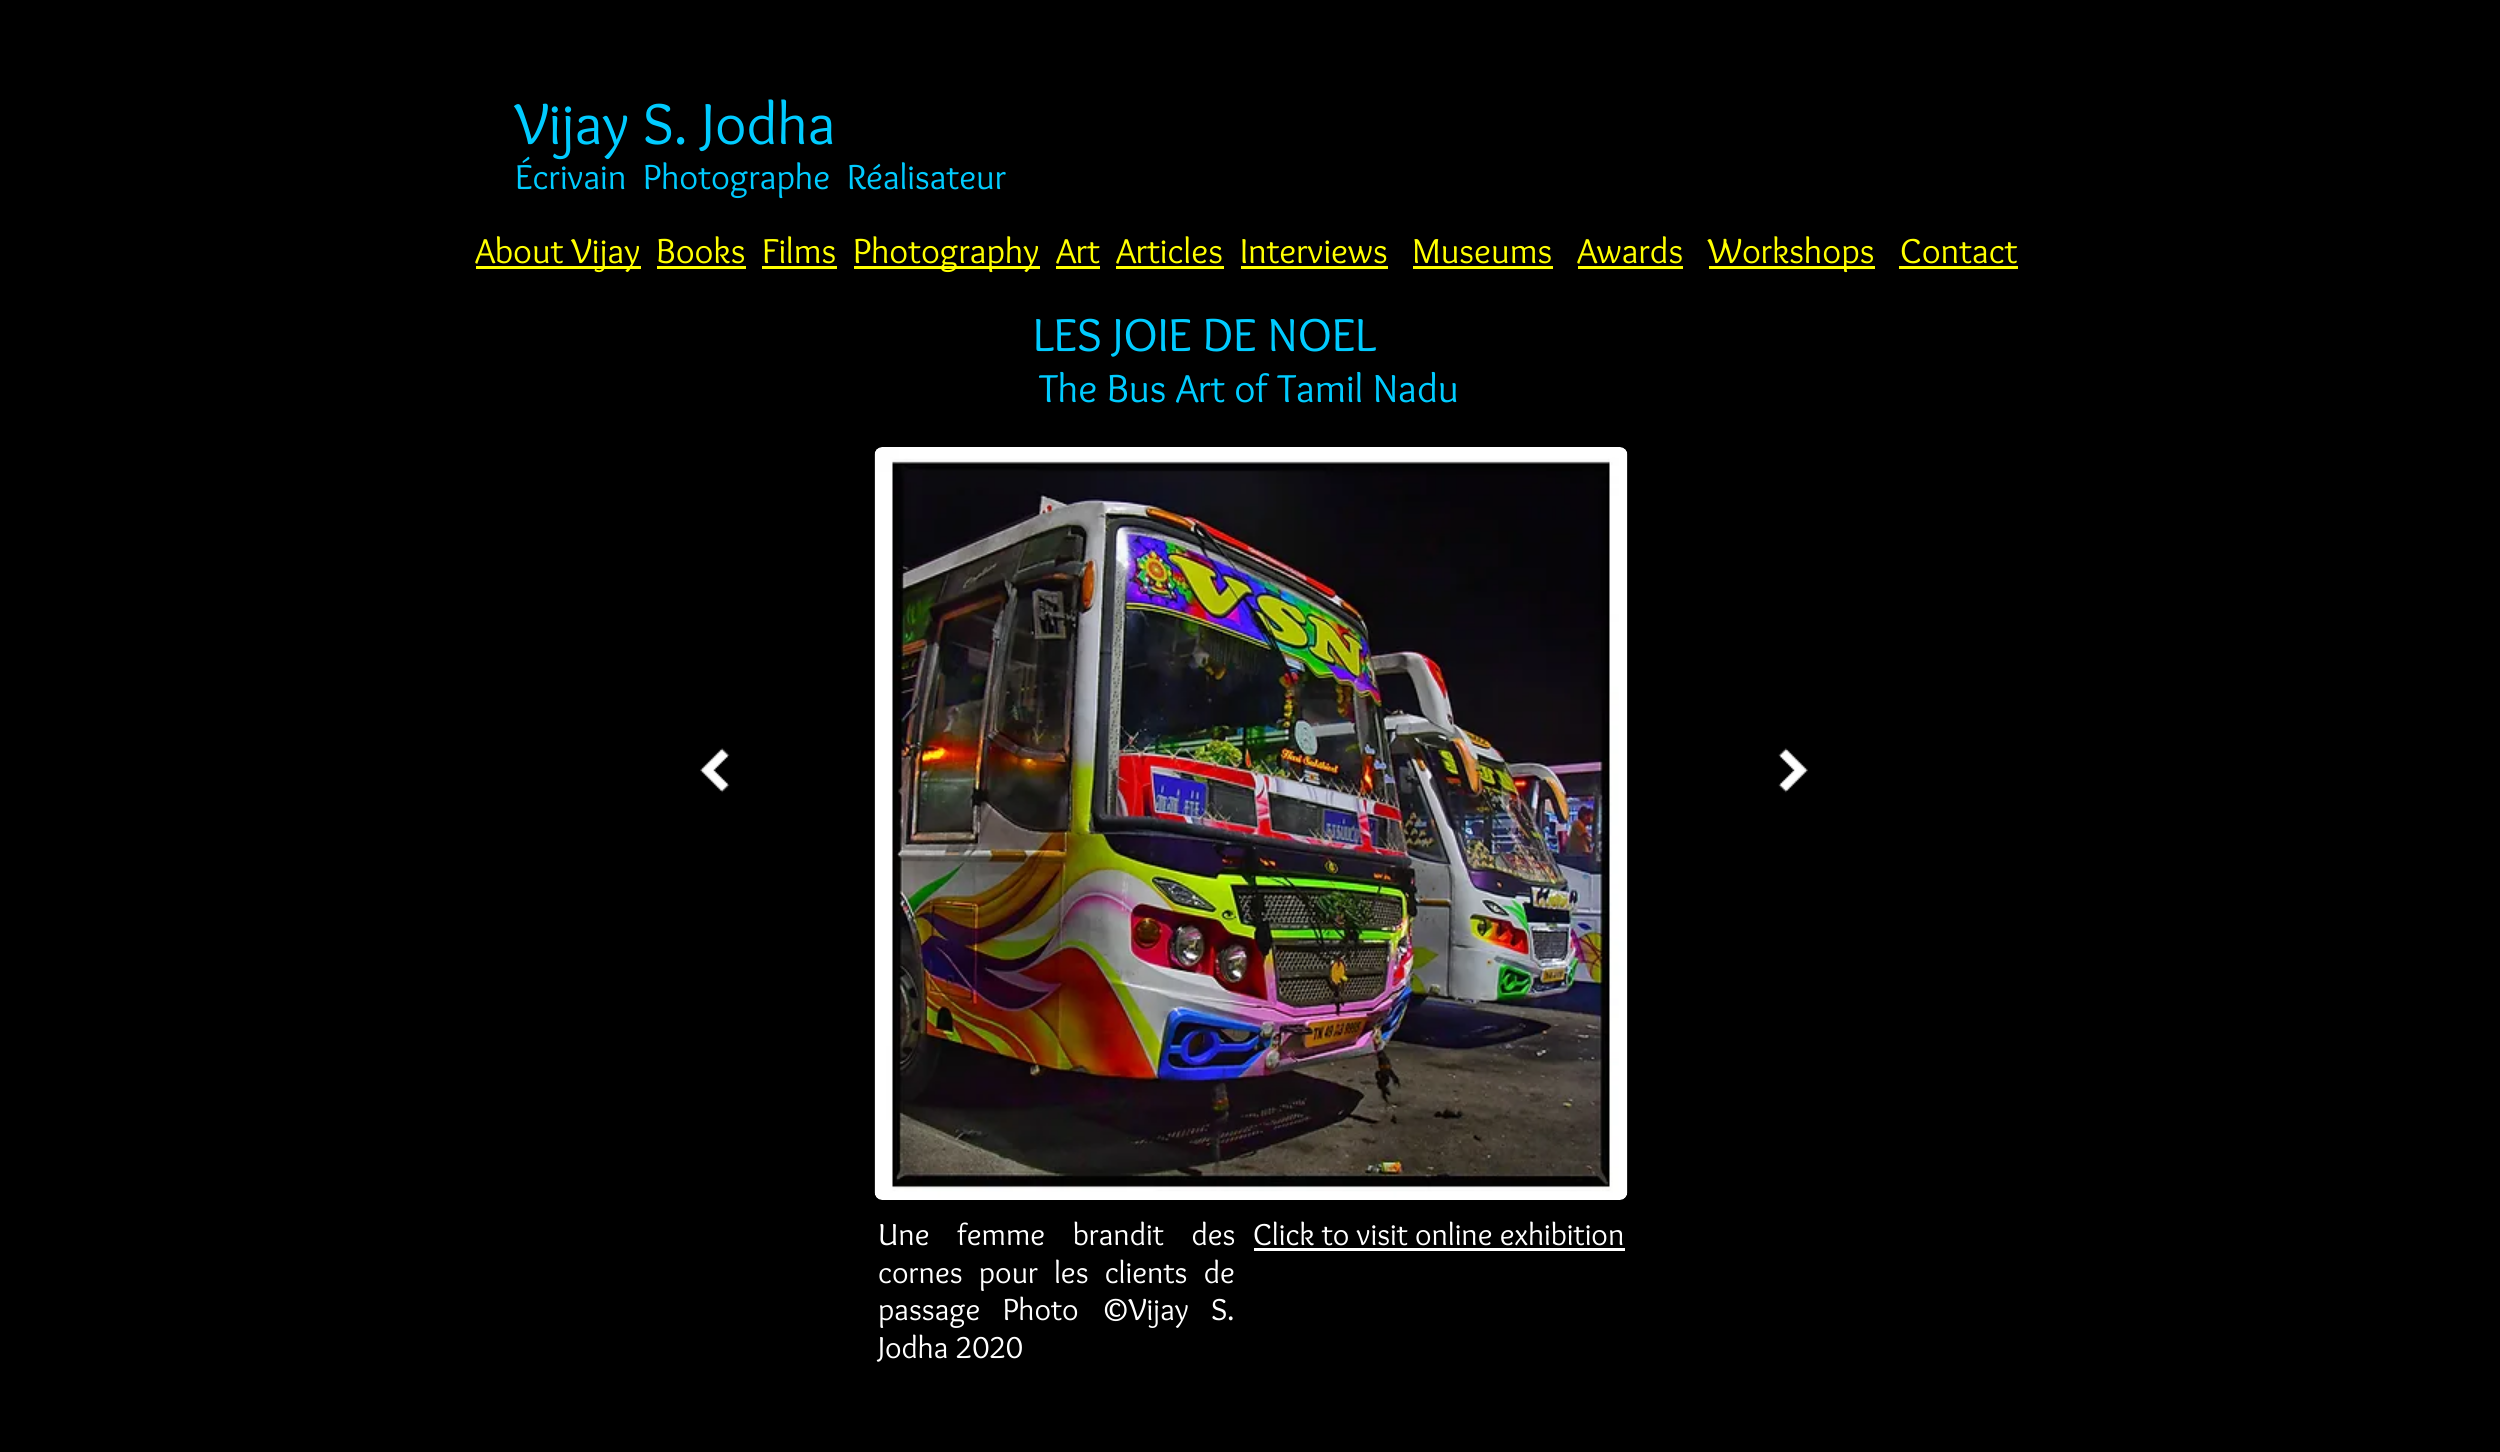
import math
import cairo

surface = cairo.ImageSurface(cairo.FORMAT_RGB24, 2500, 1452)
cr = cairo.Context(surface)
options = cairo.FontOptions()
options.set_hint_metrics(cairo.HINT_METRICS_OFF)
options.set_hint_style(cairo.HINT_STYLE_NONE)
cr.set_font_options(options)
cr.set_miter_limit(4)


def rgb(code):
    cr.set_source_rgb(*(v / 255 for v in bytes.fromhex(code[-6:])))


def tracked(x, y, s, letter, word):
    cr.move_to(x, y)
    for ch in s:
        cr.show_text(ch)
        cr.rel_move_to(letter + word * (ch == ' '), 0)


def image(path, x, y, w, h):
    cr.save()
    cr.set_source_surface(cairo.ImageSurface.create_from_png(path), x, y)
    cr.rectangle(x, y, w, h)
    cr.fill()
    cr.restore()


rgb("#000000")
cr.paint()
for x, y, w, h, color in [
    (476, 266, 165, 3, "#ffff00"),
    (657, 266, 89, 3, "#ffff00"),
    (762, 266, 75, 3, "#ffff00"),
    (854, 266, 186, 3, "#ffff00"),
    (1056, 266, 44, 3, "#ffff00"),
    (1116, 266, 108, 3, "#ffff00"),
    (1241, 266, 147, 3, "#ffff00"),
    (1413, 266, 140, 3, "#ffff00"),
    (1578, 266, 105, 3, "#ffff00"),
    (1709, 266, 166, 3, "#ffff00"),
    (1899, 266, 119, 3, "#ffff00"),
]:
    rgb(color)
    cr.rectangle(x, y, w, h)
    cr.fill()
image("img/1.png", 700, 748, 30, 45)
image("img/2.png", 874, 447, 754, 753)
image("img/3.png", 1778, 748, 30, 45)
rgb("#ffffff")
cr.rectangle(1254, 1248, 371, 3)
cr.fill()
cr.select_font_face("Overlock")
cr.set_font_size(60)
rgb("#00cbff")
cr.move_to(515, 144)
cr.show_text("Vijay S. Jodha")
cr.set_font_size(36)
for x, y, s in [
    (515, 189, "Écrivain"),
    (643, 189, "Photographe"),
    (847, 189, "Réalisateur"),
]:
    cr.move_to(x, y)
    cr.show_text(s)
rgb("#ffff00")
for x, y, s in [
    (475, 263, "About Vijay"),
    (656, 263, "Books"),
    (762, 263, "Films"),
    (853, 263, "Photography"),
    (1056, 263, "Art"),
    (1116, 263, "Articles"),
    (1240, 263, "Interviews"),
    (1412, 263, "Museums"),
    (1577, 263, "Awards"),
    (1708, 263, "Workshops"),
    (1900, 263, "Contact"),
]:
    cr.move_to(x, y)
    cr.show_text(s)
cr.set_font_size(48)
rgb("#00cbff")
cr.move_to(1033, 351)
cr.show_text("LES JOIE DE NOEL")
cr.set_font_size(40.5)
cr.move_to(1039, 402)
cr.show_text("The Bus Art of Tamil Nadu")
cr.set_font_size(31.5)
rgb("#ffffff")
tracked(878, 1245, "Une femme brandit des", 0, 20.5)
tracked(878, 1283, "cornes pour les clients de", 0, 9)
tracked(878, 1320, "passage Photo ©Vijay S.", 0, 15)
cr.move_to(878, 1358)
cr.show_text("Jodha 2020")
cr.move_to(1253, 1245)
cr.show_text("Click to visit online exhibition")
surface.write_to_png("page.png")
